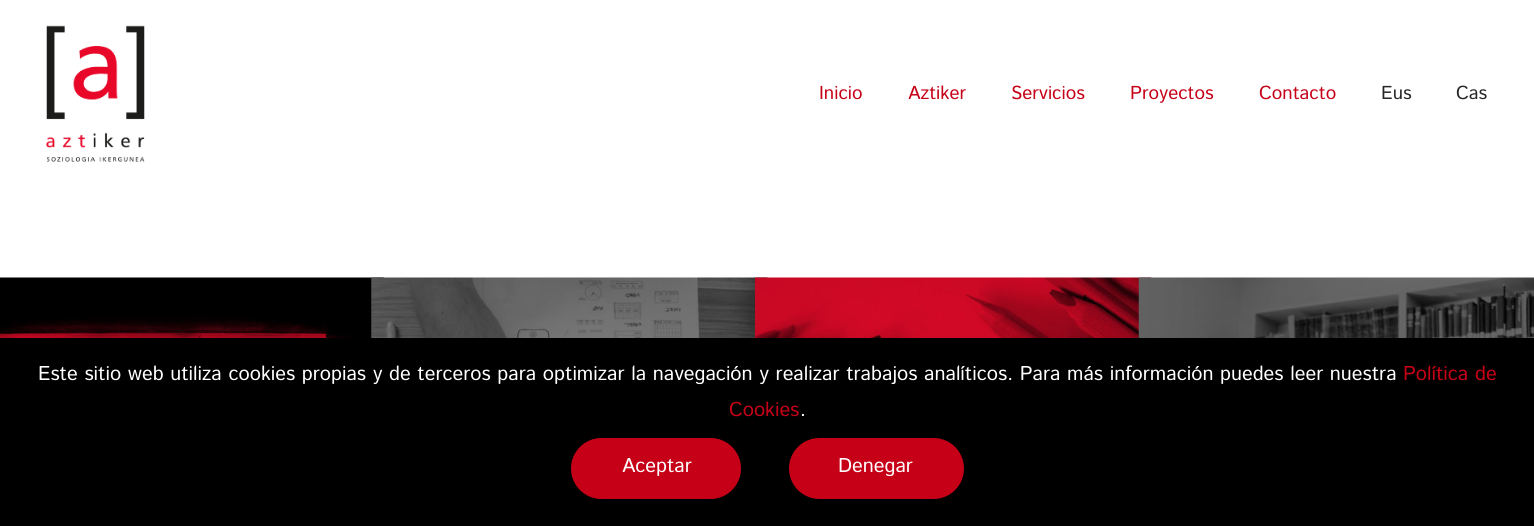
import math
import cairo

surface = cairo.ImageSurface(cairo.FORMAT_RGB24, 1534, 526)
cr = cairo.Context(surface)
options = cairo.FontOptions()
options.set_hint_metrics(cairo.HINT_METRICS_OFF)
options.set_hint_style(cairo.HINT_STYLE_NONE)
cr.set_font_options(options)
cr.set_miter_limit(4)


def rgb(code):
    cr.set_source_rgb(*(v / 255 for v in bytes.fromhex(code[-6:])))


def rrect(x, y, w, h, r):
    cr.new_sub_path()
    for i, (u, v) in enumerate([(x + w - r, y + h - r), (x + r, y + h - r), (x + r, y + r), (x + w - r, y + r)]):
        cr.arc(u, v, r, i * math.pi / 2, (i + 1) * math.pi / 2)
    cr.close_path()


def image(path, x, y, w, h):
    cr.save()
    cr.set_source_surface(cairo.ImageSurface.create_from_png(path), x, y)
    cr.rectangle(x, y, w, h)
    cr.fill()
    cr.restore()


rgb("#ffffff")
cr.paint()
image("img/1.png", 46, 25, 99, 137)
image("img/2.png", 0, 277, 384, 61)
image("img/3.png", 371, 277, 397, 61)
image("img/4.png", 755, 277, 397, 61)
image("img/5.png", 1138, 277, 396, 61)
rgb("#000000")
cr.rectangle(0, 338, 1534, 188)
cr.fill()
rgb("#c60017")
rrect(571, 438, 170, 61, 30.5)
cr.fill()
rrect(789, 438, 175, 61, 30.5)
cr.fill()
cr.select_font_face("Istok Web")
cr.set_font_size(18.75)
for x, y, s in [
    (819, 99, "Inicio"),
    (908, 99, "Aztiker"),
    (1011, 99, "Servicios"),
    (1130, 99, "Proyectos"),
    (1259, 99, "Contacto"),
]:
    cr.move_to(x, y)
    cr.show_text(s)
rgb("#262626")
cr.move_to(1381, 99)
cr.show_text("Eus")
cr.move_to(1456, 99)
cr.show_text("Cas")
cr.set_font_size(20)
rgb("#ffffff")
cr.move_to(38, 380)
cr.show_text("Este sitio web utiliza cookies propias y de terceros para optimizar la navegación y realizar trabajos analíticos. Para más información puedes leer nuestra")
rgb("#c60017")
cr.move_to(1403, 380)
cr.show_text("Política de")
cr.move_to(729, 416)
cr.show_text("Cookies")
rgb("#ffffff")
for x, y, s in [
    (800, 416, "."),
    (622, 472, "Aceptar"),
    (838, 472, "Denegar"),
]:
    cr.move_to(x, y)
    cr.show_text(s)
surface.write_to_png("page.png")
